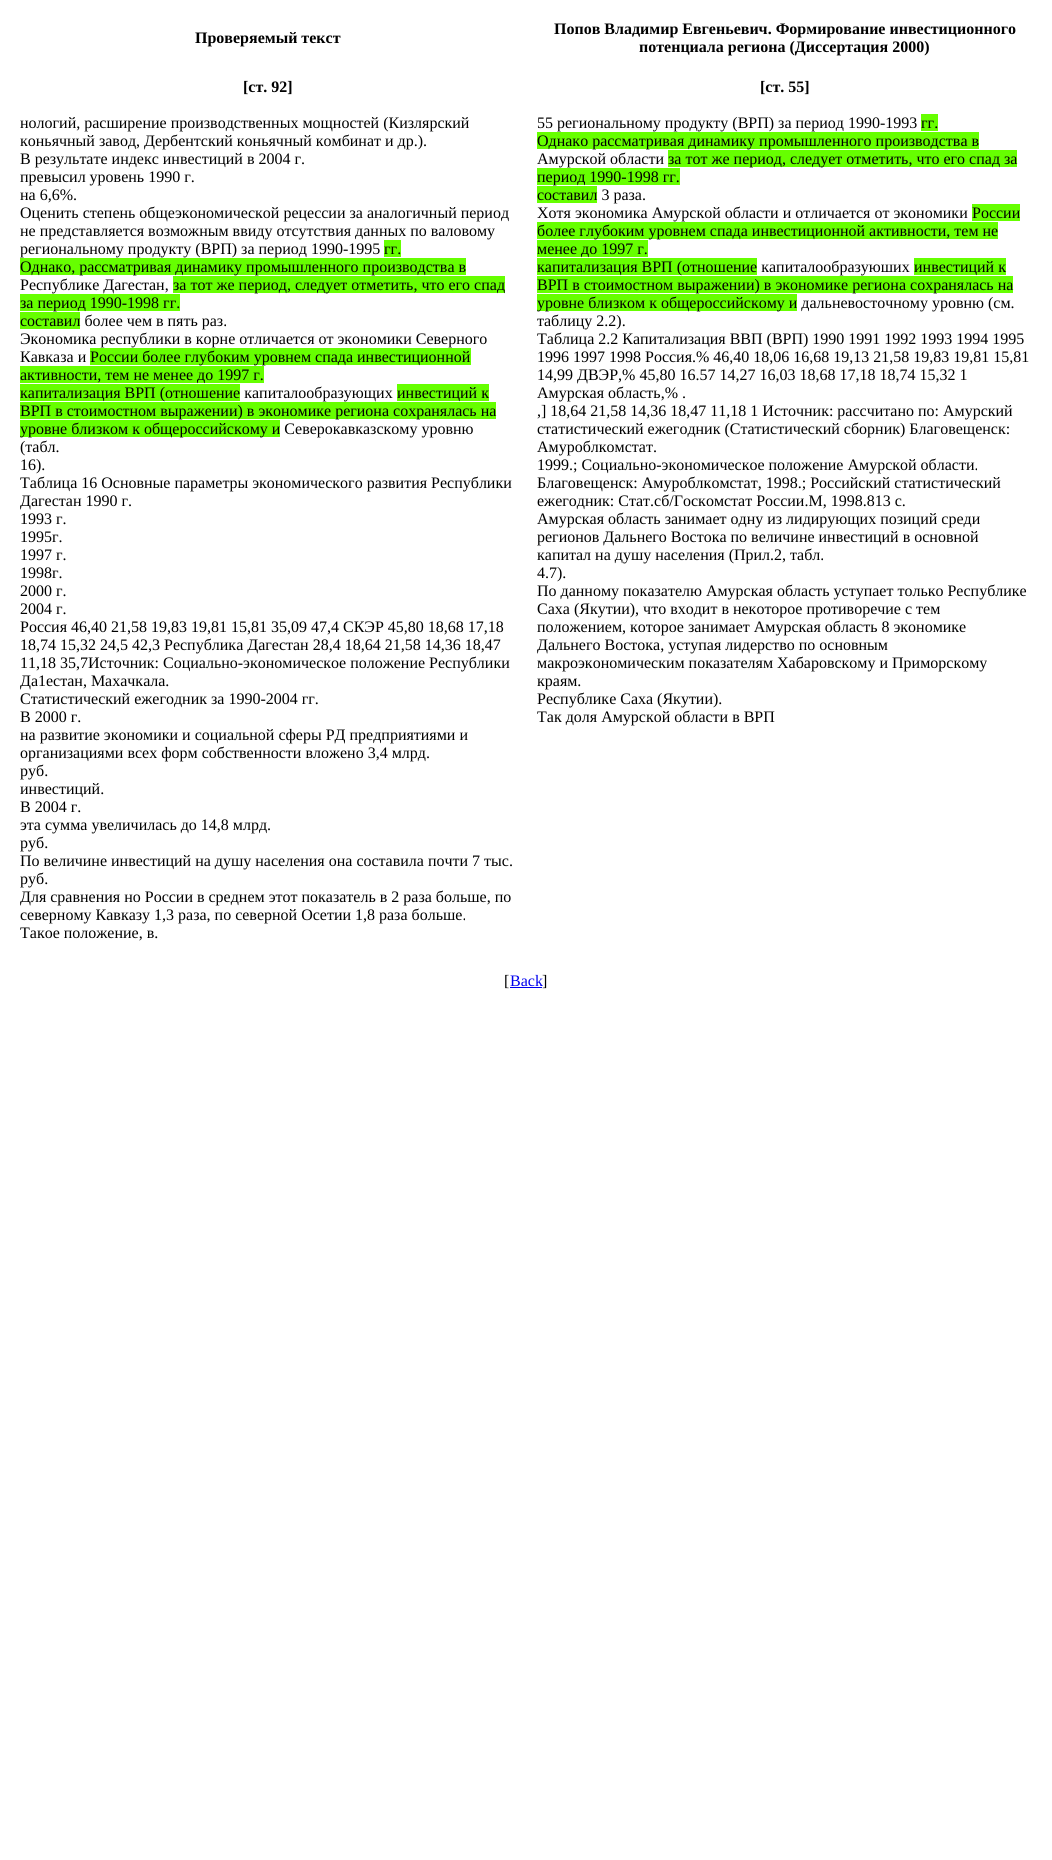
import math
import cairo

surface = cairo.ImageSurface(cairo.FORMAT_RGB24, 1052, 1860)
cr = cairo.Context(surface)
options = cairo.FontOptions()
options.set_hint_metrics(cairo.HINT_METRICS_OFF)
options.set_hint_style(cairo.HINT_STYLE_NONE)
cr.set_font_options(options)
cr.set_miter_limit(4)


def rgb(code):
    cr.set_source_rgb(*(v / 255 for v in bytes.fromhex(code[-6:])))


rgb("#ffffff")
cr.paint()
for x, y, w, h, color in [
    (384, 240, 17, 17, "#66ff00"),
    (20, 258, 446, 17, "#66ff00"),
    (173, 276, 332, 17, "#66ff00"),
    (20, 294, 160, 17, "#66ff00"),
    (20, 312, 60, 17, "#66ff00"),
    (90, 348, 381, 17, "#66ff00"),
    (20, 366, 244, 17, "#66ff00"),
    (20, 384, 220, 17, "#66ff00"),
    (397, 384, 92, 17, "#66ff00"),
    (20, 402, 476, 17, "#66ff00"),
    (20, 420, 260, 17, "#66ff00"),
    (921, 114, 17, 17, "#66ff00"),
    (537, 132, 442, 17, "#66ff00"),
    (668, 150, 349, 17, "#66ff00"),
    (537, 168, 143, 17, "#66ff00"),
    (537, 186, 60, 17, "#66ff00"),
    (972, 204, 48, 17, "#66ff00"),
    (537, 222, 461, 17, "#66ff00"),
    (537, 240, 111, 17, "#66ff00"),
    (537, 258, 220, 17, "#66ff00"),
    (914, 258, 92, 17, "#66ff00"),
    (537, 276, 476, 17, "#66ff00"),
    (537, 294, 260, 17, "#66ff00"),
    (510, 987, 32, 1, "#0000ee"),
]:
    rgb(color)
    cr.rectangle(x, y, w, h)
    cr.fill()
cr.select_font_face("Liberation Serif", cairo.FONT_SLANT_NORMAL, cairo.FONT_WEIGHT_BOLD)
cr.set_font_size(16)
rgb("#000000")
for x, y, s in [
    (195, 43, "Проверяемый текст"),
    (554, 34, "Попов Владимир Евгеньевич. Формирование инвестиционного"),
    (639, 52, "потенциала региона (Диссертация 2000)"),
    (243, 92, "[ст. 92]"),
]:
    cr.move_to(x, y)
    cr.show_text(s)
cr.select_font_face("Liberation Serif")
for x, y, s in [
    (20, 128, "нологий, расширение производственных мощностей (Кизлярский"),
    (20, 146, "коньячный завод, Дербентский коньячный комбинат и др.)."),
    (20, 164, "В результате индекс инвестиций в 2004 г."),
    (20, 182, "превысил уровень 1990 г."),
    (20, 200, "на 6,6%."),
    (20, 218, "Оценить степень общеэкономической рецессии за аналогичный период"),
    (20, 236, "не представляется возможным ввиду отсутствия данных по валовому"),
    (20, 254, "региональному продукту (ВРП) за период 1990-1995"),
    (384, 254, "гг."),
    (20, 272, "Однако, рассматривая динамику промышленного производства в"),
    (20, 290, "Республике Дагестан,"),
    (173, 290, "за тот же период, следует отметить, что его спад"),
    (20, 308, "за период 1990-1998 гг."),
    (20, 326, "составил более чем в пять раз."),
    (20, 344, "Экономика республики в корне отличается от экономики Северного"),
    (20, 362, "Кавказа и"),
    (90, 362, "России более глубоким уровнем спада инвестиционной"),
    (20, 380, "активности, тем не менее до 1997 г."),
    (20, 398, "капитализация ВРП (отношение капиталообразующих"),
    (397, 398, "инвестиций к"),
    (20, 416, "ВРП в стоимостном выражении) в экономике региона сохранялась на"),
    (20, 434, "уровне близком к общероссийскому и Северокавказскому уровню"),
    (20, 452, "(табл."),
    (20, 470, "16)."),
    (20, 488, "Таблица 16 Основные параметры экономического развития Республики"),
    (20, 506, "Дагестан 1990 г."),
    (20, 524, "1993 г."),
    (20, 542, "1995г."),
    (20, 560, "1997 г."),
    (20, 578, "1998г."),
    (20, 596, "2000 г."),
    (20, 614, "2004 г."),
    (20, 632, "Россия 46,40 21,58 19,83 19,81 15,81 35,09 47,4 СКЭР 45,80 18,68 17,18"),
    (20, 650, "18,74 15,32 24,5 42,3 Республика Дагестан 28,4 18,64 21,58 14,36 18,47"),
    (20, 668, "11,18 35,7Источник: Социально-экономическое положение Республики"),
    (20, 686, "Да1естан, Махачкала."),
    (20, 704, "Статистический ежегодник за 1990-2004 гг."),
    (20, 722, "В 2000 г."),
    (20, 740, "на развитие экономики и социальной сферы РД предприятиями и"),
    (20, 758, "организациями всех форм собственности вложено 3,4 млрд."),
    (20, 776, "руб."),
    (20, 794, "инвестиций."),
    (20, 812, "В 2004 г."),
    (20, 830, "эта сумма увеличилась до 14,8 млрд."),
    (20, 848, "руб."),
    (20, 866, "По величине инвестиций на душу населения она составила почти 7 тыс."),
    (20, 884, "руб."),
    (20, 902, "Для сравнения но России в среднем этот показатель в 2 раза больше, по"),
    (20, 920, "северному Кавказу 1,3 раза, по северной Осетии 1,8 раза больше."),
    (20, 938, "Такое положение, в."),
]:
    cr.move_to(x, y)
    cr.show_text(s)
cr.select_font_face("Liberation Serif", cairo.FONT_SLANT_NORMAL, cairo.FONT_WEIGHT_BOLD)
cr.move_to(760, 92)
cr.show_text("[ст. 55]")
cr.select_font_face("Liberation Serif")
for x, y, s in [
    (537, 128, "55 региональному продукту (ВРП) за период 1990-1993"),
    (921, 128, "гг."),
    (537, 146, "Однако рассматривая динамику промышленного производства в"),
    (537, 164, "Амурской области"),
    (668, 164, "за тот же период, следует отметить, что его спад за"),
    (537, 182, "период 1990-1998 гг."),
    (537, 200, "составил 3 раза."),
    (537, 218, "Хотя экономика Амурской области и отличается от экономики"),
    (972, 218, "России"),
    (537, 236, "более глубоким уровнем спада инвестиционной активности, тем не"),
    (537, 254, "менее до 1997 г."),
    (537, 272, "капитализация ВРП (отношение капиталообразуюших"),
    (914, 272, "инвестиций к"),
    (537, 290, "ВРП в стоимостном выражении) в экономике региона сохранялась на"),
    (537, 308, "уровне близком к общероссийскому и дальневосточному уровню (см."),
    (537, 326, "таблицу 2.2)."),
    (537, 344, "Таблица 2.2 Капитализация ВВП (ВРП) 1990 1991 1992 1993 1994 1995"),
    (537, 362, "1996 1997 1998 Россия.% 46,40 18,06 16,68 19,13 21,58 19,83 19,81 15,81"),
    (537, 380, "14,99 ДВЭР,% 45,80 16.57 14,27 16,03 18,68 17,18 18,74 15,32 1"),
    (537, 398, "Амурская область,% ."),
    (537, 416, ",] 18,64 21,58 14,36 18,47 11,18 1 Источник: рассчитано по: Амурский"),
    (537, 434, "статистический ежегодник (Статистический сборник) Благовещенск:"),
    (537, 452, "Амуроблкомстат."),
    (537, 470, "1999.; Социально-экономическое положение Амурской области."),
    (537, 488, "Благовещенск: Амуроблкомстат, 1998.; Российский статистический"),
    (537, 506, "ежегодник: Стат.сб/Госкомстат России.М, 1998.813 с."),
    (537, 524, "Амурская область занимает одну из лидирующих позиций среди"),
    (537, 542, "регионов Дальнего Востока по величине инвестиций в основной"),
    (537, 560, "капитал на душу населения (Прил.2, табл."),
    (537, 578, "4.7)."),
    (537, 596, "По данному показателю Амурская область уступает только Республике"),
    (537, 614, "Саха (Якутии), что входит в некоторое противоречие с тем"),
    (537, 632, "положением, которое занимает Амурская область 8 экономике"),
    (537, 650, "Дальнего Востока, уступая лидерство по основным"),
    (537, 668, "макроэкономическим показателям Хабаровскому и Приморскому"),
    (537, 686, "краям."),
    (537, 704, "Республике Саха (Якутии)."),
    (537, 722, "Так доля Амурской области в ВРП"),
    (504, 986, "["),
]:
    cr.move_to(x, y)
    cr.show_text(s)
rgb("#0000ee")
cr.move_to(510, 986)
cr.show_text("Back")
rgb("#000000")
cr.move_to(542, 986)
cr.show_text("]")
surface.write_to_png("page.png")
